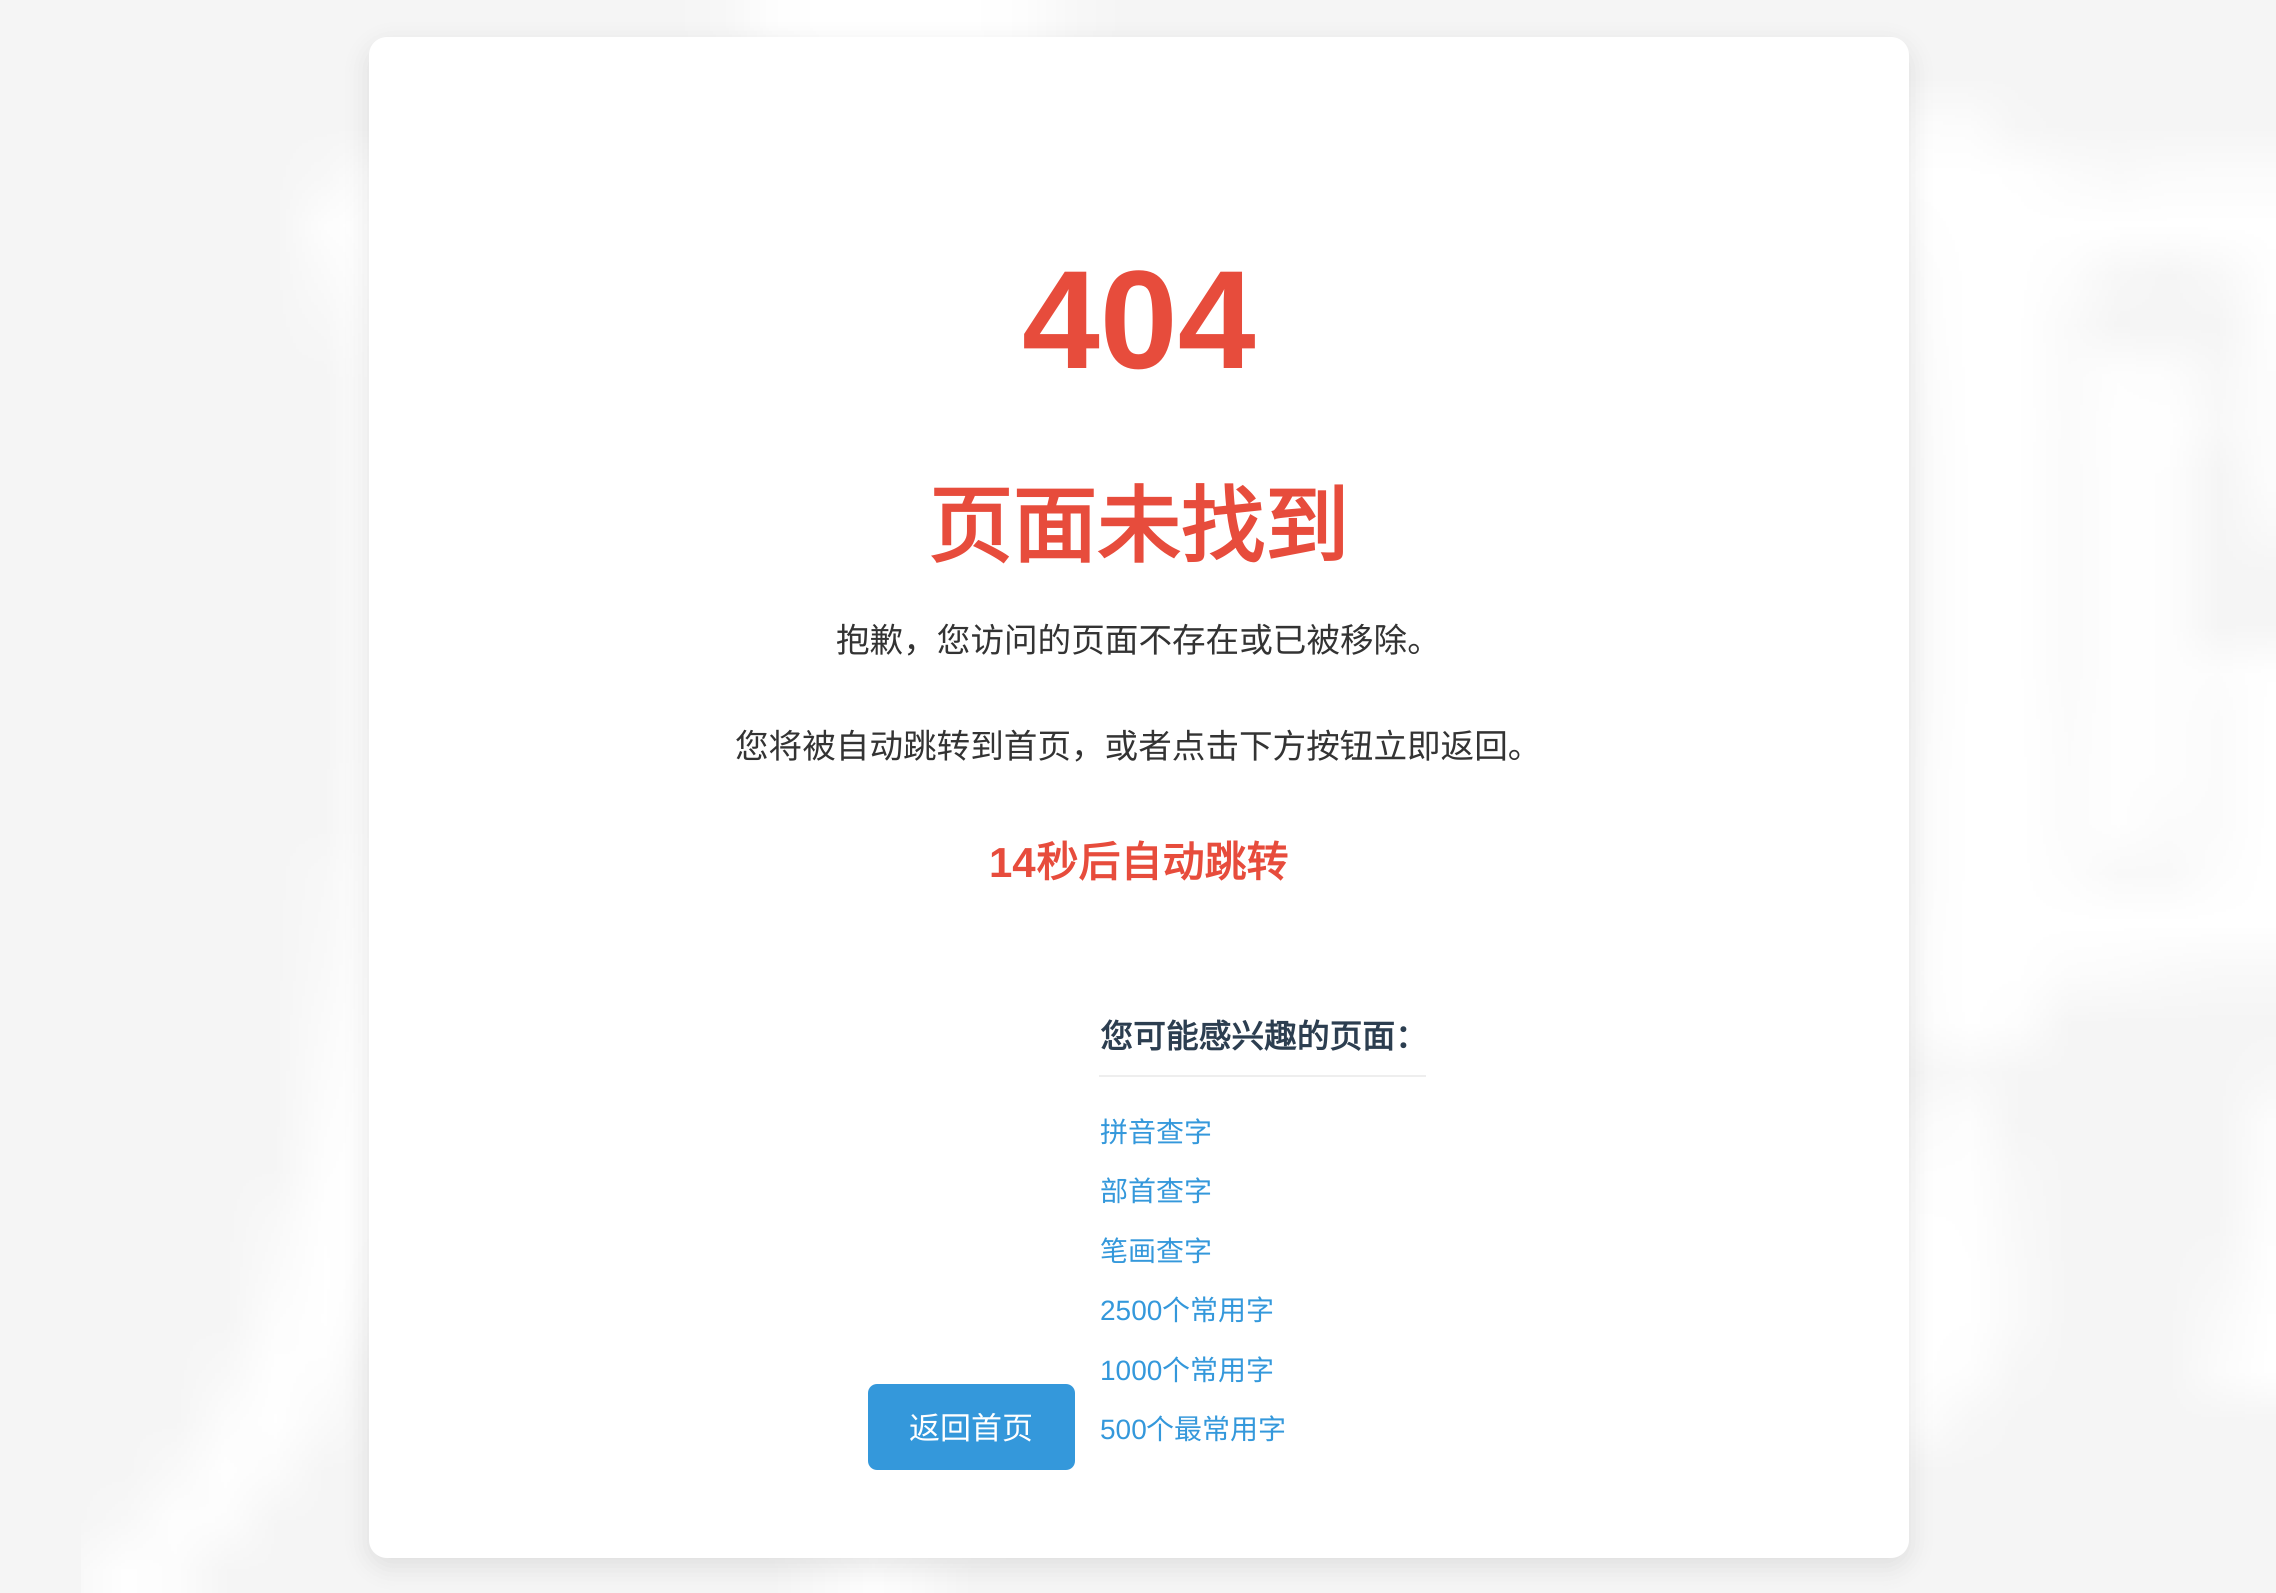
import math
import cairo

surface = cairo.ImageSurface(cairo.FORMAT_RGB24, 2276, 1593)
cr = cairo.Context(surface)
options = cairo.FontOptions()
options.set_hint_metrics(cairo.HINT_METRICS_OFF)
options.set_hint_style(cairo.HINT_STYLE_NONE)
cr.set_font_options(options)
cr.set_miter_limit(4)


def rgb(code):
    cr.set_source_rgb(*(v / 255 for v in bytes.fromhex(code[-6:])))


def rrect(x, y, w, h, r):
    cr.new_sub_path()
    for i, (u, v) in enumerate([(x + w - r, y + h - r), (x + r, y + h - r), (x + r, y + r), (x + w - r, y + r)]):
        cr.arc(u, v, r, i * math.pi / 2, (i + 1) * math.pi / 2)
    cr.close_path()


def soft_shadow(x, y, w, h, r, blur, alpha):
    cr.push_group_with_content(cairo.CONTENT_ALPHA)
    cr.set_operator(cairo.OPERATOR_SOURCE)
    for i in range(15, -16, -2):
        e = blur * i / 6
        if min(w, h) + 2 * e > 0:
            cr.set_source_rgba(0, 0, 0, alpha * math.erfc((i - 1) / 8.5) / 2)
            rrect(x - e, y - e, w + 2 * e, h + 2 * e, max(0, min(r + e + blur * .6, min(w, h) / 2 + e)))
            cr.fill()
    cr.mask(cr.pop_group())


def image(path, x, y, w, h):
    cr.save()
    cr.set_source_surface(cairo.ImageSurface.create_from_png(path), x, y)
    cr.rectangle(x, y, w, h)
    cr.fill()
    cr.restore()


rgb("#f5f5f5")
cr.paint()
image("img/1.png", 81, 0, 2195, 1593)
rgb("#000000")
soft_shadow(369, 46, 1540, 1520, 18, 13, 0.1)
rgb("#ffffff")
rrect(369, 37, 1540, 1521, 18)
cr.fill()
rgb("#3498db")
rrect(868, 1384, 207, 86, 9)
cr.fill()
rgb("#eeeeee")
cr.rectangle(1099, 1075, 327, 2)
cr.fill()
cr.select_font_face("Liberation Sans", cairo.FONT_SLANT_NORMAL, cairo.FONT_WEIGHT_BOLD)
cr.set_font_size(140)
rgb("#e74c3c")
cr.move_to(1022, 368)
cr.show_text("404")
cr.select_font_face("Noto Sans CJK SC", cairo.FONT_SLANT_NORMAL, cairo.FONT_WEIGHT_BOLD)
cr.set_font_size(84)
cr.move_to(928, 556)
cr.show_text("页面未找到")
cr.select_font_face("Noto Sans CJK SC")
cr.set_font_size(33.6)
rgb("#333333")
cr.move_to(836, 652)
cr.show_text("抱歉，您访问的页面不存在或已被移除。")
cr.move_to(735, 758)
cr.show_text("您将被自动跳转到首页，或者点击下方按钮立即返回。")
cr.select_font_face("Liberation Sans", cairo.FONT_SLANT_NORMAL, cairo.FONT_WEIGHT_BOLD)
cr.set_font_size(42)
rgb("#e74c3c")
cr.move_to(989, 877)
cr.show_text("14")
cr.select_font_face("Noto Sans CJK SC", cairo.FONT_SLANT_NORMAL, cairo.FONT_WEIGHT_BOLD)
cr.move_to(1036, 877)
cr.show_text("秒后自动跳转")
cr.select_font_face("Noto Sans CJK SC")
cr.set_font_size(31)
rgb("#ffffff")
cr.move_to(909, 1439)
cr.show_text("返回首页")
cr.select_font_face("Noto Sans CJK SC", cairo.FONT_SLANT_NORMAL, cairo.FONT_WEIGHT_BOLD)
cr.set_font_size(32.75)
rgb("#2c3e50")
cr.move_to(1100, 1048)
cr.show_text("您可能感兴趣的页面：")
cr.select_font_face("Noto Sans CJK SC")
cr.set_font_size(28)
rgb("#3498db")
for x, y, s in [
    (1100, 1142, "拼音查字"),
    (1100, 1201, "部首查字"),
    (1100, 1261, "笔画查字"),
]:
    cr.move_to(x, y)
    cr.show_text(s)
cr.select_font_face("Liberation Sans")
cr.move_to(1100, 1320)
cr.show_text("2500")
cr.select_font_face("Noto Sans CJK SC")
cr.move_to(1162, 1320)
cr.show_text("个常用字")
cr.select_font_face("Liberation Sans")
cr.move_to(1100, 1380)
cr.show_text("1000")
cr.select_font_face("Noto Sans CJK SC")
cr.move_to(1162, 1380)
cr.show_text("个常用字")
cr.select_font_face("Liberation Sans")
cr.move_to(1100, 1439)
cr.show_text("500")
cr.select_font_face("Noto Sans CJK SC")
cr.move_to(1146, 1439)
cr.show_text("个最常用字")
surface.write_to_png("page.png")
